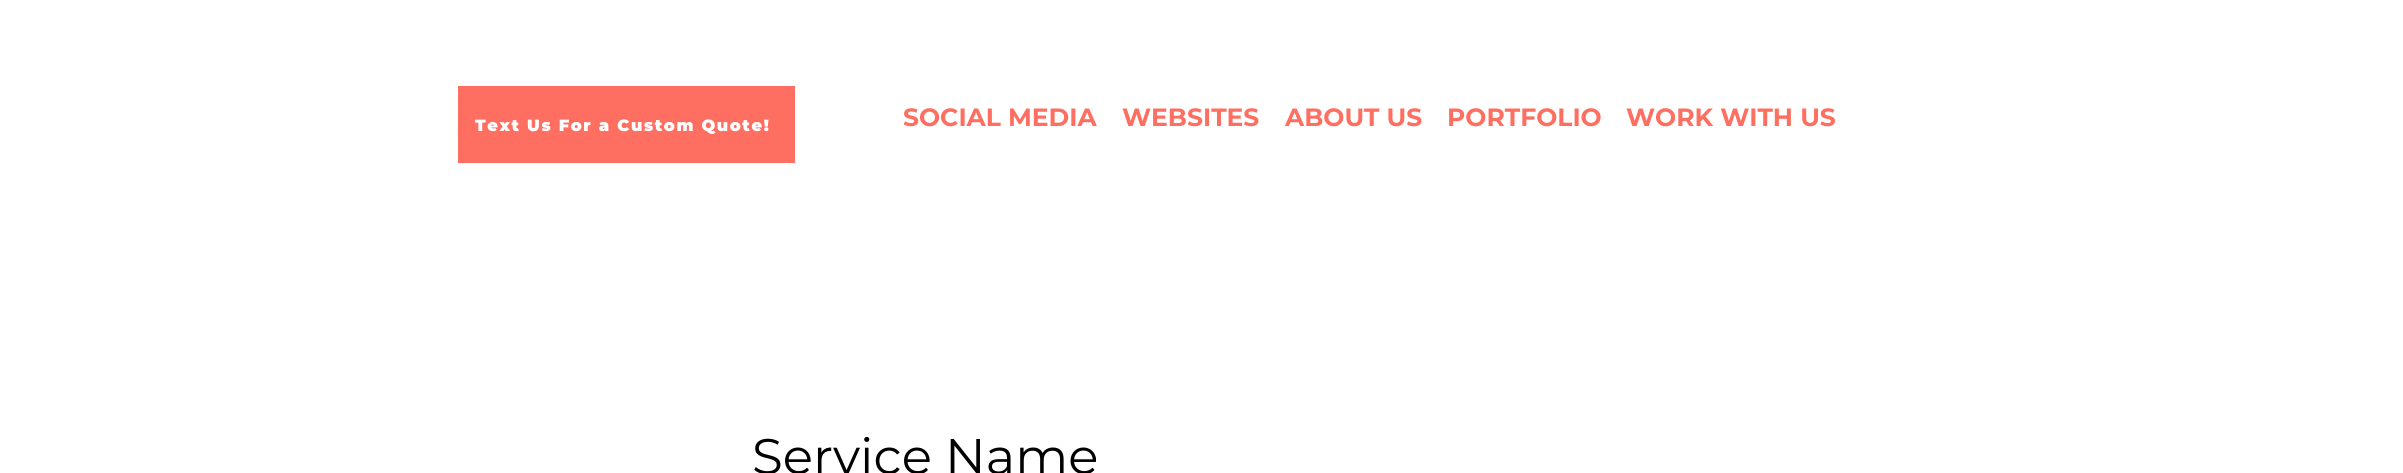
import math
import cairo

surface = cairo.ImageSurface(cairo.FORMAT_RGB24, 2403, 473)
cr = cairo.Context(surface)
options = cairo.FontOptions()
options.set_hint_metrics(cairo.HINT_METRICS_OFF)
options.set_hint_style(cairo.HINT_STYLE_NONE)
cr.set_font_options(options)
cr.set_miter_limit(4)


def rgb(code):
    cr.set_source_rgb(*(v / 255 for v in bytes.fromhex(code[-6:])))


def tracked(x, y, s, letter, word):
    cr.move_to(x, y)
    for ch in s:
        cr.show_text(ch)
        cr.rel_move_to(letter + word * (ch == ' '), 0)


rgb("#ffffff")
cr.paint()
rgb("#ff6f61")
cr.rectangle(458, 86, 337, 77)
cr.fill()
cr.select_font_face("Montserrat Thin")
cr.set_font_size(16.25)
rgb("#ffffff")
tracked(475, 131, "Text Us For a Custom Quote!", 1.6, 0)
cr.select_font_face("Montserrat", cairo.FONT_SLANT_NORMAL, cairo.FONT_WEIGHT_BOLD)
cr.set_font_size(25)
rgb("#ff6f61")
for x, y, s in [
    (903, 126, "SOCIAL MEDIA"),
    (1122, 126, "WEBSITES"),
    (1285, 126, "ABOUT US"),
    (1447, 126, "PORTFOLIO"),
    (1626, 126, "WORK WITH US"),
]:
    cr.move_to(x, y)
    cr.show_text(s)
cr.select_font_face("Montserrat")
cr.set_font_size(50)
rgb("#000000")
cr.move_to(752, 474)
cr.show_text("Service Name")
surface.write_to_png("page.png")
